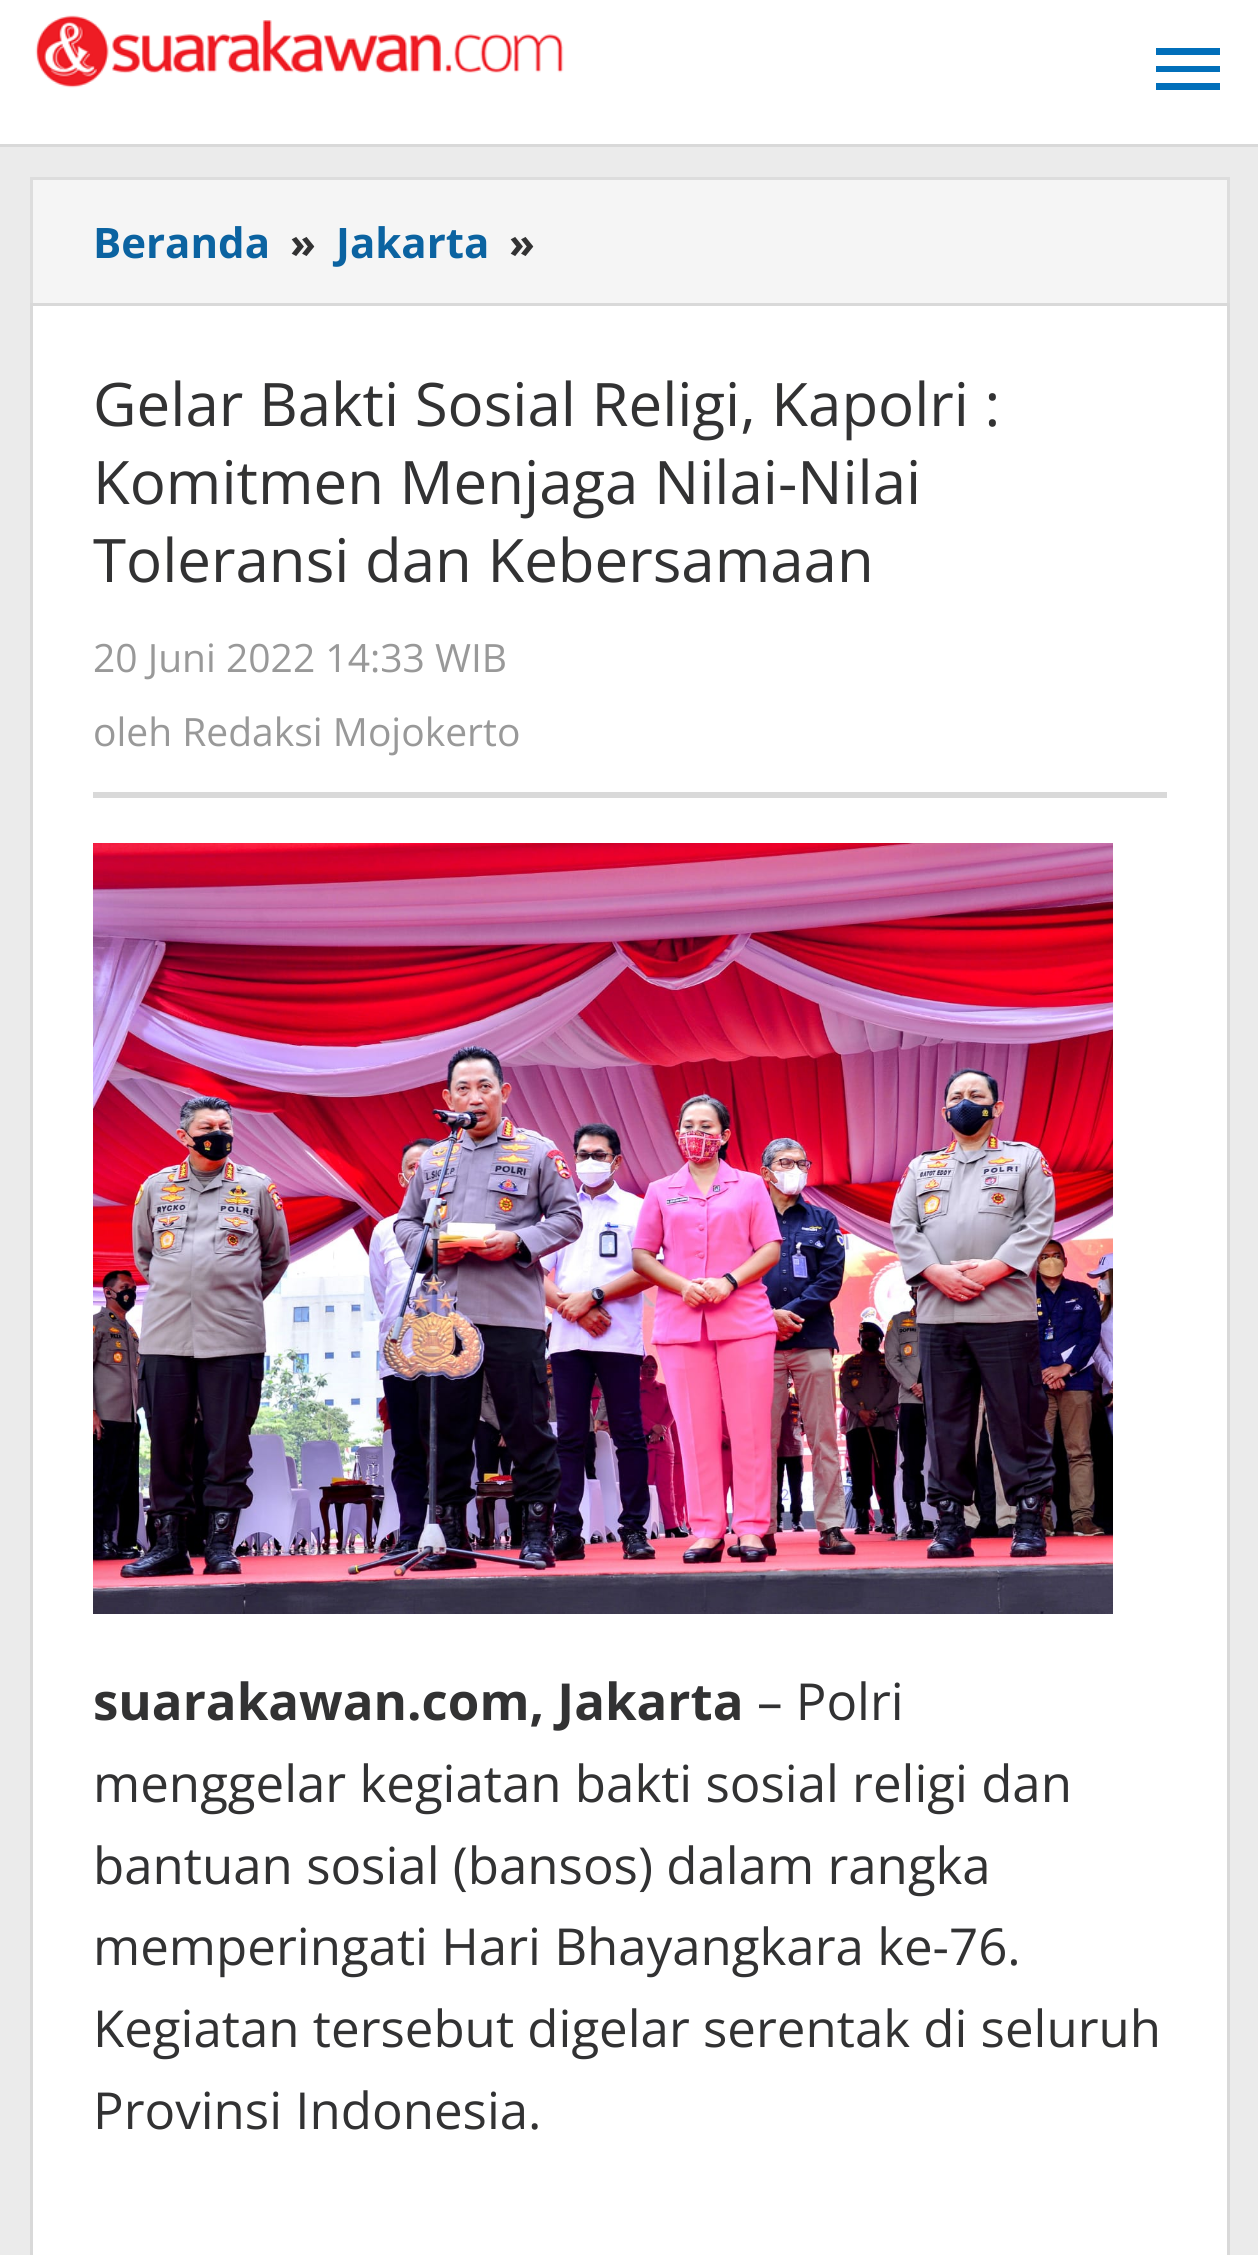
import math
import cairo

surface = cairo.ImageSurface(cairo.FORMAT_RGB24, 1258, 2255)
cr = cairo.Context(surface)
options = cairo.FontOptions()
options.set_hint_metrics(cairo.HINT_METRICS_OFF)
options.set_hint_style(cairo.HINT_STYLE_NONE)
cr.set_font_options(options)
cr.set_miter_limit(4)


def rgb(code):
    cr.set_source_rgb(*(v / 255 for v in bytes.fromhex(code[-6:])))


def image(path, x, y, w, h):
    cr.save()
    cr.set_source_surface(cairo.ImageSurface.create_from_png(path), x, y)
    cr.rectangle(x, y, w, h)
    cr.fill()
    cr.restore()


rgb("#ebebeb")
cr.paint()
rgb("#ffffff")
cr.rectangle(0, 0, 1258, 144)
cr.fill()
rgb("#d9d9d9")
cr.rectangle(0, 144, 1258, 3)
cr.fill()
image("img/1.png", 35, 15, 529, 73)
rgb("#016fba")
cr.new_path()
cr.move_to(1156, 90)
cr.line_to(1220, 90)
cr.line_to(1220, 83)
cr.line_to(1156, 83)
cr.close_path()
cr.move_to(1156, 72)
cr.line_to(1220, 72)
cr.line_to(1220, 66)
cr.line_to(1156, 66)
cr.close_path()
cr.move_to(1156, 48)
cr.line_to(1156, 55)
cr.line_to(1220, 55)
cr.line_to(1220, 48)
cr.close_path()
cr.fill()
rgb("#f5f5f5")
cr.rectangle(31.5, 178.5, 1197, 126)
cr.fill_preserve()
rgb("#dddddd")
cr.set_line_width(3)
cr.stroke()
rgb("#ffffff")
cr.rectangle(31.5, 304.5, 1197, 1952)
cr.fill_preserve()
rgb("#d9d9d9")
cr.stroke()
cr.rectangle(93, 792, 1074, 6)
cr.fill()
image("img/2.png", 93, 843, 1020, 771)
cr.select_font_face("Open Sans", cairo.FONT_SLANT_NORMAL, cairo.FONT_WEIGHT_BOLD)
cr.set_font_size(42)
rgb("#0b63a1")
cr.move_to(93, 258)
cr.show_text("Beranda")
rgb("#323233")
cr.move_to(290, 258)
cr.show_text("»")
rgb("#0b63a1")
cr.move_to(336, 258)
cr.show_text("Jakarta")
rgb("#323233")
cr.move_to(509, 258)
cr.show_text("»")
cr.select_font_face("Open Sans")
cr.set_font_size(60)
for x, y, s in [
    (93, 426, "Gelar Bakti Sosial Religi, Kapolri :"),
    (93, 504, "Komitmen Menjaga Nilai-Nilai"),
    (93, 582, "Toleransi dan Kebersamaan"),
]:
    cr.move_to(x, y)
    cr.show_text(s)
cr.set_font_size(39)
rgb("#999999")
cr.move_to(93, 672)
cr.show_text("20 Juni 2022 14:33 WIB")
cr.move_to(93, 746)
cr.show_text("oleh Redaksi Mojokerto")
cr.select_font_face("Open Sans", cairo.FONT_SLANT_NORMAL, cairo.FONT_WEIGHT_BOLD)
cr.set_font_size(51)
rgb("#323233")
cr.move_to(93, 1720)
cr.show_text("suarakawan.com, Jakarta")
cr.select_font_face("Open Sans")
for x, y, s in [
    (757, 1720, "– Polri"),
    (93, 1802, "menggelar kegiatan bakti sosial religi dan"),
    (93, 1884, "bantuan sosial (bansos) dalam rangka"),
    (93, 1965, "memperingati Hari Bhayangkara ke-76."),
    (93, 2047, "Kegiatan tersebut digelar serentak di seluruh"),
    (93, 2129, "Provinsi Indonesia."),
]:
    cr.move_to(x, y)
    cr.show_text(s)
surface.write_to_png("page.png")
